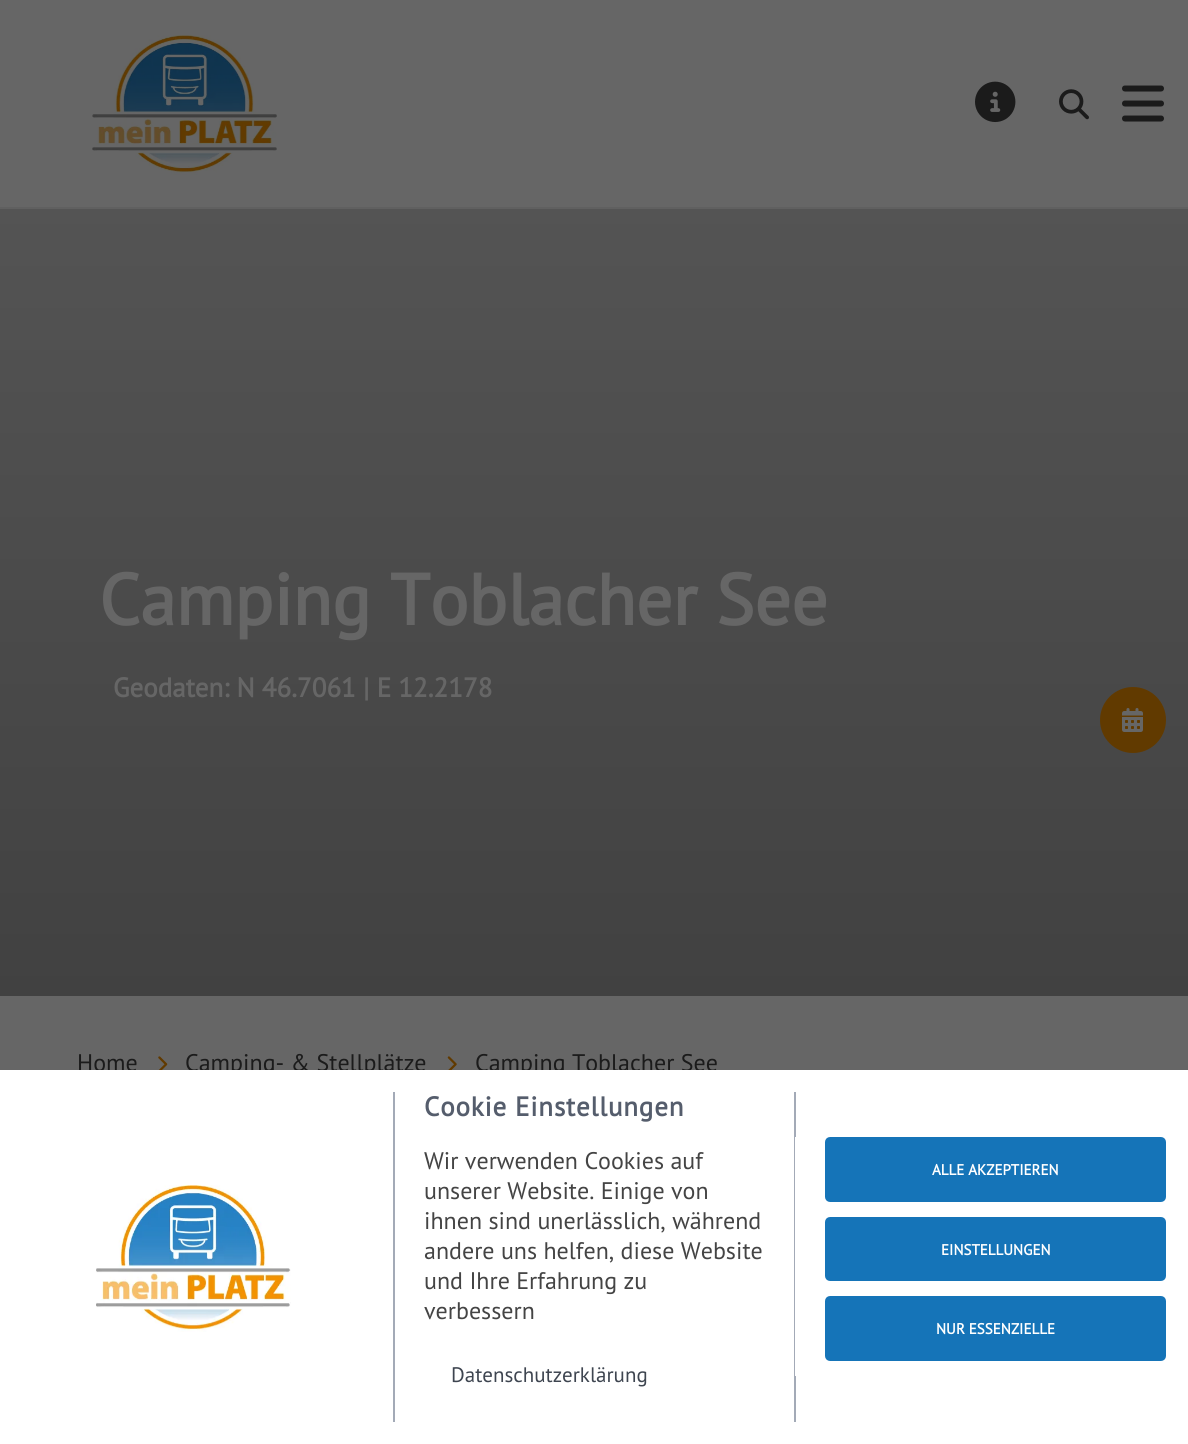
import math
import cairo

surface = cairo.ImageSurface(cairo.FORMAT_RGB24, 1188, 1444)
cr = cairo.Context(surface)
options = cairo.FontOptions()
options.set_hint_metrics(cairo.HINT_METRICS_OFF)
options.set_hint_style(cairo.HINT_STYLE_NONE)
cr.set_font_options(options)
cr.set_miter_limit(4)


def rgb(code):
    cr.set_source_rgb(*(v / 255 for v in bytes.fromhex(code[-6:])))


def tracked(x, y, s, letter, word):
    cr.move_to(x, y)
    for ch in s:
        cr.show_text(ch)
        cr.rel_move_to(letter + word * (ch == ' '), 0)


def rrect(x, y, w, h, r):
    cr.new_sub_path()
    for i, (u, v) in enumerate([(x + w - r, y + h - r), (x + r, y + h - r), (x + r, y + r), (x + w - r, y + r)]):
        cr.arc(u, v, r, i * math.pi / 2, (i + 1) * math.pi / 2)
    cr.close_path()


def image(path, x, y, w, h):
    cr.save()
    cr.set_source_surface(cairo.ImageSurface.create_from_png(path), x, y)
    cr.rectangle(x, y, w, h)
    cr.fill()
    cr.restore()


rgb("#666666")
cr.paint()
rgb("#606060")
cr.rectangle(0, 207, 1188, 2)
cr.fill()
image("img/1.png", 92, 35, 185, 140)
image("img/2.png", 975, 81, 41, 42)
image("img/3.png", 1059, 89, 30, 31)
image("img/4.png", 1122, 85, 42, 37)
gradient = cairo.LinearGradient(594, 208, 594, 996)
gradient.add_color_stop_rgba(0, 0.329, 0.329, 0.329, 1)
gradient.add_color_stop_rgba(1, 0.255, 0.255, 0.255, 1)
cr.set_source(gradient)
cr.rectangle(0, 209, 1188, 787)
cr.fill()
image("img/5.png", 158, 1056, 10, 14)
image("img/6.png", 447, 1056, 10, 14)
rgb("#613a00")
cr.arc(1133, 720, 33, 0, 2 * math.pi)
cr.fill()
image("img/7.png", 1122, 708, 21, 24)
cr.select_font_face("PT Sans", cairo.FONT_SLANT_NORMAL, cairo.FONT_WEIGHT_BOLD)
cr.set_font_size(72)
rgb("#666666")
cr.move_to(99, 625)
cr.show_text("Camping Toblacher See")
cr.set_font_size(27)
cr.move_to(113, 697)
cr.show_text("Geodaten: N 46.7061 | E 12.2178")
cr.select_font_face("PT Sans")
cr.set_font_size(24)
rgb("#1b1b1b")
for x, y, s in [
    (77, 1071, "Home"),
    (185, 1071, "Camping- & Stellplätze"),
    (475, 1071, "Camping Toblacher See"),
]:
    cr.move_to(x, y)
    cr.show_text(s)
rgb("#ffffff")
cr.rectangle(0, 1070, 1188, 374)
cr.fill()
image("img/8.png", 96, 1185, 195, 147)
rgb("#a3aab7")
cr.rectangle(794, 1092, 2, 330)
cr.fill()
cr.rectangle(393, 1092, 2, 330)
cr.fill()
cr.select_font_face("PT Sans", cairo.FONT_SLANT_NORMAL, cairo.FONT_WEIGHT_BOLD)
cr.set_font_size(27)
rgb("#555d6c")
tracked(424, 1116, "Cookie Einstellungen", 0.8, 0)
cr.select_font_face("PT Sans")
cr.set_font_size(24)
rgb("#444444")
for x, y, s in [
    (424, 1169, "Wir verwenden Cookies auf"),
    (424, 1199, "unserer Website. Einige von"),
    (424, 1229, "ihnen sind unerlässlich, während"),
    (424, 1259, "andere uns helfen, diese Website"),
    (424, 1289, "und Ihre Erfahrung zu"),
    (424, 1319, "verbessern"),
]:
    cr.move_to(x, y)
    cr.show_text(s)
cr.set_font_size(21)
rgb("#3e4550")
cr.move_to(451, 1382)
cr.show_text("Datenschutzerklärung")
rgb("#ffffff")
cr.rectangle(795, 1137, 1, 239)
cr.fill()
rgb("#1574b8")
rrect(826.5, 1138.5, 338, 62, 3.5)
cr.fill_preserve()
cr.set_line_width(3)
cr.stroke()
cr.select_font_face("PT Sans", cairo.FONT_SLANT_NORMAL, cairo.FONT_WEIGHT_BOLD)
cr.set_font_size(15)
rgb("#ffffff")
cr.move_to(932, 1175)
cr.show_text("ALLE AKZEPTIEREN")
rgb("#1574b8")
rrect(826.5, 1218.5, 338, 61, 3.5)
cr.fill_preserve()
cr.stroke()
rgb("#ffffff")
cr.move_to(941, 1255)
cr.show_text("EINSTELLUNGEN")
rgb("#1574b8")
rrect(826.5, 1297.5, 338, 62, 3.5)
cr.fill_preserve()
cr.stroke()
rgb("#ffffff")
cr.move_to(936, 1334)
cr.show_text("NUR ESSENZIELLE")
surface.write_to_png("page.png")
